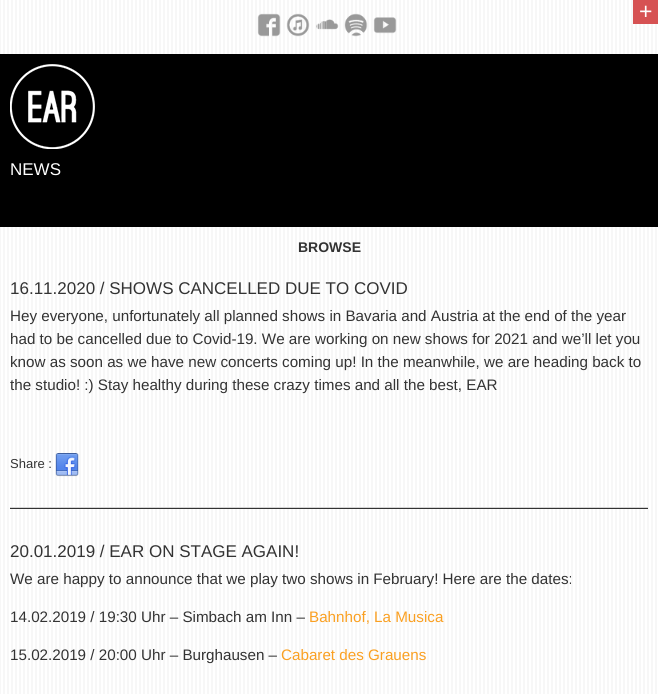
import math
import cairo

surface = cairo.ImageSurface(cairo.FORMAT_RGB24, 658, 694)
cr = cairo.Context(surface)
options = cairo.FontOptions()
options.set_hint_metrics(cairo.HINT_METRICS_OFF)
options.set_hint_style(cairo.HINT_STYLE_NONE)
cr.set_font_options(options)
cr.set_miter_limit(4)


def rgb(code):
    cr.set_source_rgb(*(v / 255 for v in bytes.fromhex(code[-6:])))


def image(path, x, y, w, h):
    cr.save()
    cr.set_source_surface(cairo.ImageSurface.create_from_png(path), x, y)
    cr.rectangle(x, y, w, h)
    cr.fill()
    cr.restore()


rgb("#ffffff")
cr.paint()
image("img/1.png", 0, 0, 657, 694)
rgb("#d65253")
cr.rectangle(633, 0, 25, 24)
cr.fill()
image("img/2.png", 257, 13, 24, 24)
image("img/3.png", 286, 13, 24, 24)
image("img/4.png", 316, 19, 23, 11)
image("img/5.png", 344, 13, 24, 24)
image("img/6.png", 373, 17, 24, 17)
rgb("#000000")
cr.rectangle(0, 54, 658, 173)
cr.fill()
image("img/7.png", 10, 64, 85, 85)
image("img/8.png", 55, 453, 24, 24)
rgb("#333333")
cr.rectangle(10, 508, 638, 1)
cr.fill()
rgb("#d4d4d4")
cr.rectangle(10, 507, 638, 1)
cr.fill()
cr.select_font_face("Liberation Sans")
cr.set_font_size(23)
rgb("#ffffff")
cr.move_to(639, 19)
cr.show_text("+")
cr.set_font_size(17)
cr.move_to(10, 175)
cr.show_text("NEWS")
cr.select_font_face("Liberation Sans", cairo.FONT_SLANT_NORMAL, cairo.FONT_WEIGHT_BOLD)
cr.set_font_size(14)
rgb("#333333")
cr.move_to(298, 252)
cr.show_text("BROWSE")
cr.select_font_face("Liberation Sans")
cr.set_font_size(17)
cr.move_to(10, 294)
cr.show_text("16.11.2020 / SHOWS CANCELLED DUE TO COVID")
cr.set_font_size(15.2)
for x, y, s in [
    (10, 321, "Hey everyone, unfortunately all planned shows in Bavaria and Austria at the end of the year"),
    (10, 344, "had to be cancelled due to Covid-19. We are working on new shows for 2021 and we’ll let you"),
    (10, 367, "know as soon as we have new concerts coming up! In the meanwhile, we are heading back to"),
    (10, 390, "the studio! :) Stay healthy during these crazy times and all the best, EAR"),
]:
    cr.move_to(x, y)
    cr.show_text(s)
cr.set_font_size(13)
cr.move_to(10, 468)
cr.show_text("Share :")
cr.set_font_size(17)
cr.move_to(10, 557)
cr.show_text("20.01.2019 / EAR ON STAGE AGAIN!")
cr.set_font_size(15.2)
cr.move_to(10, 584)
cr.show_text("We are happy to announce that we play two shows in February! Here are the dates:")
cr.move_to(10, 622)
cr.show_text("14.02.2019 / 19:30 Uhr – Simbach am Inn –")
rgb("#faa022")
cr.move_to(309, 622)
cr.show_text("Bahnhof, La Musica")
rgb("#333333")
cr.move_to(10, 660)
cr.show_text("15.02.2019 / 20:00 Uhr – Burghausen –")
rgb("#faa022")
cr.move_to(281, 660)
cr.show_text("Cabaret des Grauens")
surface.write_to_png("page.png")
